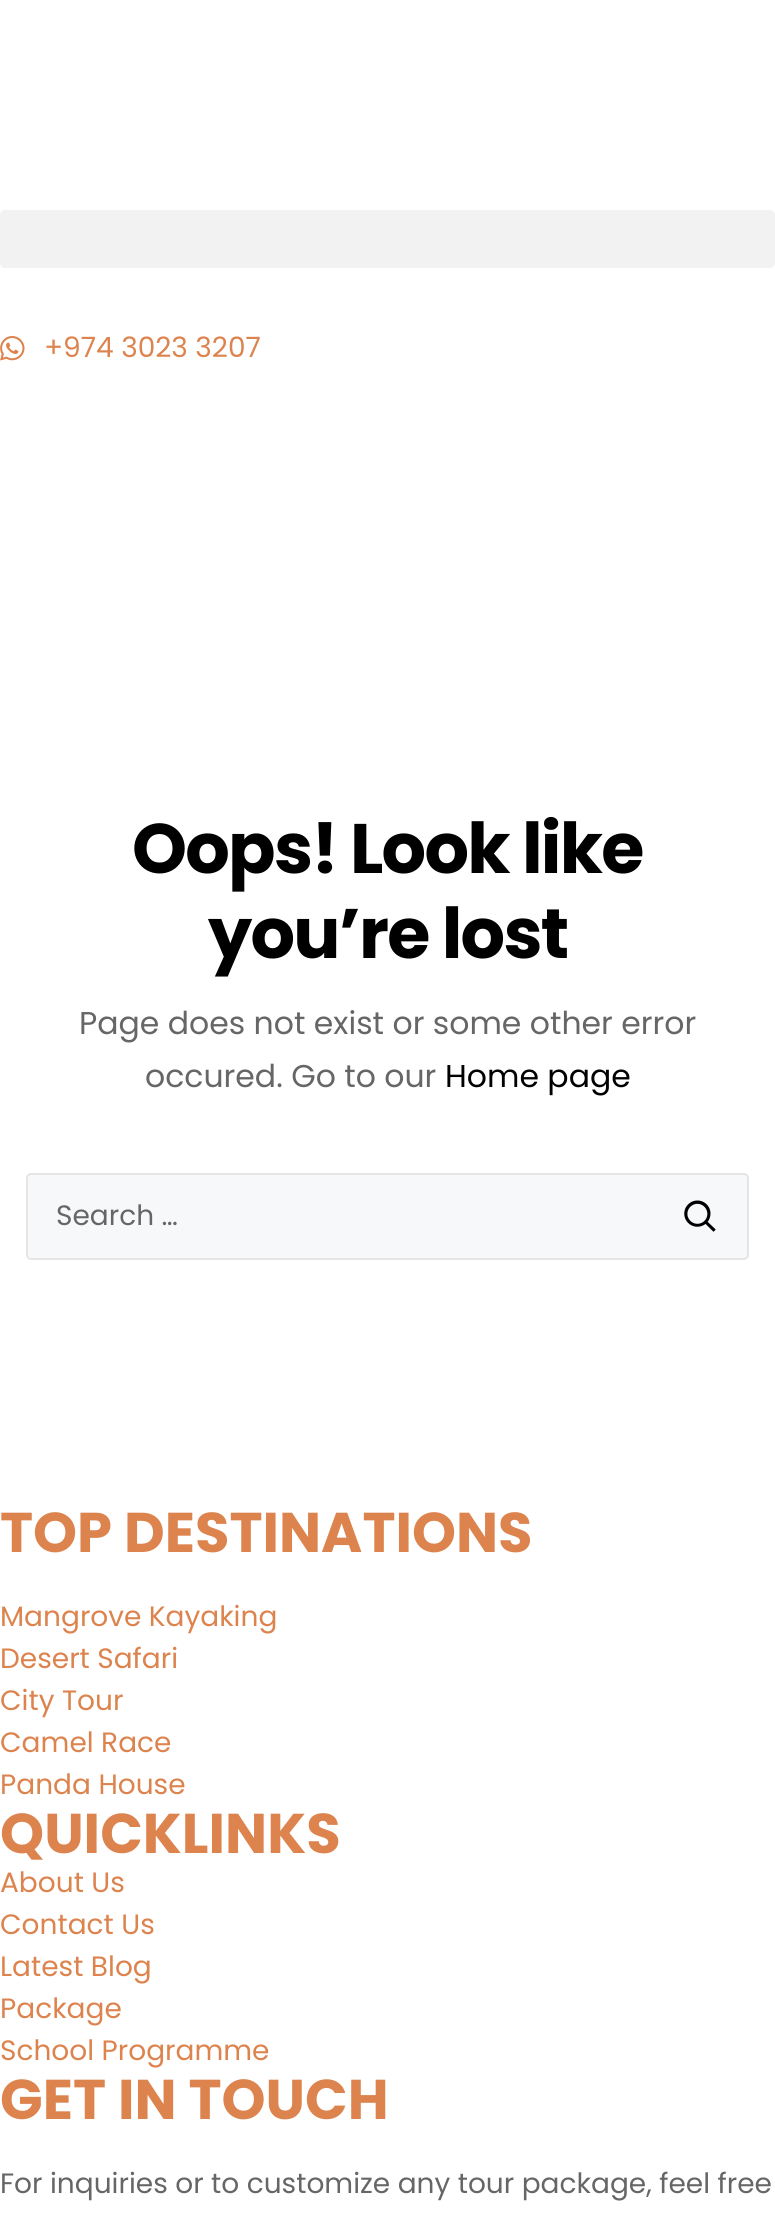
import math
import cairo

surface = cairo.ImageSurface(cairo.FORMAT_RGB24, 775, 2229)
cr = cairo.Context(surface)
options = cairo.FontOptions()
options.set_hint_metrics(cairo.HINT_METRICS_OFF)
options.set_hint_style(cairo.HINT_STYLE_NONE)
cr.set_font_options(options)
cr.set_miter_limit(4)


def rgb(code):
    cr.set_source_rgb(*(v / 255 for v in bytes.fromhex(code[-6:])))


def tracked(x, y, s, letter, word):
    cr.move_to(x, y)
    for ch in s:
        cr.show_text(ch)
        cr.rel_move_to(letter + word * (ch == ' '), 0)


def rrect(x, y, w, h, r):
    cr.new_sub_path()
    for i, (u, v) in enumerate([(x + w - r, y + h - r), (x + r, y + h - r), (x + r, y + r), (x + w - r, y + r)]):
        cr.arc(u, v, r, i * math.pi / 2, (i + 1) * math.pi / 2)
    cr.close_path()


def image(path, x, y, w, h):
    cr.save()
    cr.set_source_surface(cairo.ImageSurface.create_from_png(path), x, y)
    cr.rectangle(x, y, w, h)
    cr.fill()
    cr.restore()


rgb("#ffffff")
cr.paint()
rgb("#f2f2f2")
rrect(0, 210, 775, 58, 5)
cr.fill()
image("img/1.png", 0, 336, 25, 25)
rgb("#f7f8fa")
rrect(26, 1173, 723, 87, 9)
cr.fill()
rrect(27, 1174, 721, 85, 4)
rgb("#e5e5e5")
cr.stroke()
image("img/2.png", 684, 1200, 32, 32)
cr.select_font_face("Poppins")
cr.set_font_size(28)
rgb("#dc834e")
cr.move_to(44, 357)
cr.show_text("+974 3023 3207")
cr.select_font_face("Poppins", cairo.FONT_SLANT_NORMAL, cairo.FONT_WEIGHT_BOLD)
cr.set_font_size(70)
rgb("#000000")
tracked(132, 873, "Oops! Look like", -1.75, 0)
tracked(208, 958, "you’re lost", -1.75, 0)
cr.select_font_face("Poppins")
cr.set_font_size(31.5)
rgb("#666666")
cr.move_to(79, 1034)
cr.show_text("Page does not exist or some other error")
cr.move_to(145, 1087)
cr.show_text("occured. Go to our")
rgb("#000000")
cr.move_to(445, 1087)
cr.show_text("Home page")
cr.set_font_size(28)
rgb("#666666")
cr.move_to(56, 1225)
cr.show_text("Search …")
cr.select_font_face("Poppins", cairo.FONT_SLANT_NORMAL, cairo.FONT_WEIGHT_BOLD)
cr.set_font_size(56)
rgb("#dc834e")
cr.move_to(0, 1552)
cr.show_text("TOP DESTINATIONS")
cr.select_font_face("Poppins")
cr.set_font_size(28)
for x, y, s in [
    (0, 1626, "Mangrove Kayaking"),
    (0, 1668, "Desert Safari"),
    (0, 1710, "City Tour"),
    (0, 1752, "Camel Race"),
    (0, 1794, "Panda House"),
]:
    cr.move_to(x, y)
    cr.show_text(s)
cr.select_font_face("Poppins", cairo.FONT_SLANT_NORMAL, cairo.FONT_WEIGHT_BOLD)
cr.set_font_size(56)
cr.move_to(0, 1853)
cr.show_text("QUICKLINKS")
cr.select_font_face("Poppins")
cr.set_font_size(28)
for x, y, s in [
    (0, 1892, "About Us"),
    (0, 1934, "Contact Us"),
    (0, 1976, "Latest Blog"),
    (0, 2018, "Package"),
    (0, 2060, "School Programme"),
]:
    cr.move_to(x, y)
    cr.show_text(s)
cr.select_font_face("Poppins", cairo.FONT_SLANT_NORMAL, cairo.FONT_WEIGHT_BOLD)
cr.set_font_size(56)
cr.move_to(0, 2119)
cr.show_text("GET IN TOUCH")
cr.select_font_face("Poppins")
cr.set_font_size(28)
rgb("#666666")
cr.move_to(0, 2193)
cr.show_text("For inquiries or to customize any tour package, feel free")
surface.write_to_png("page.png")
